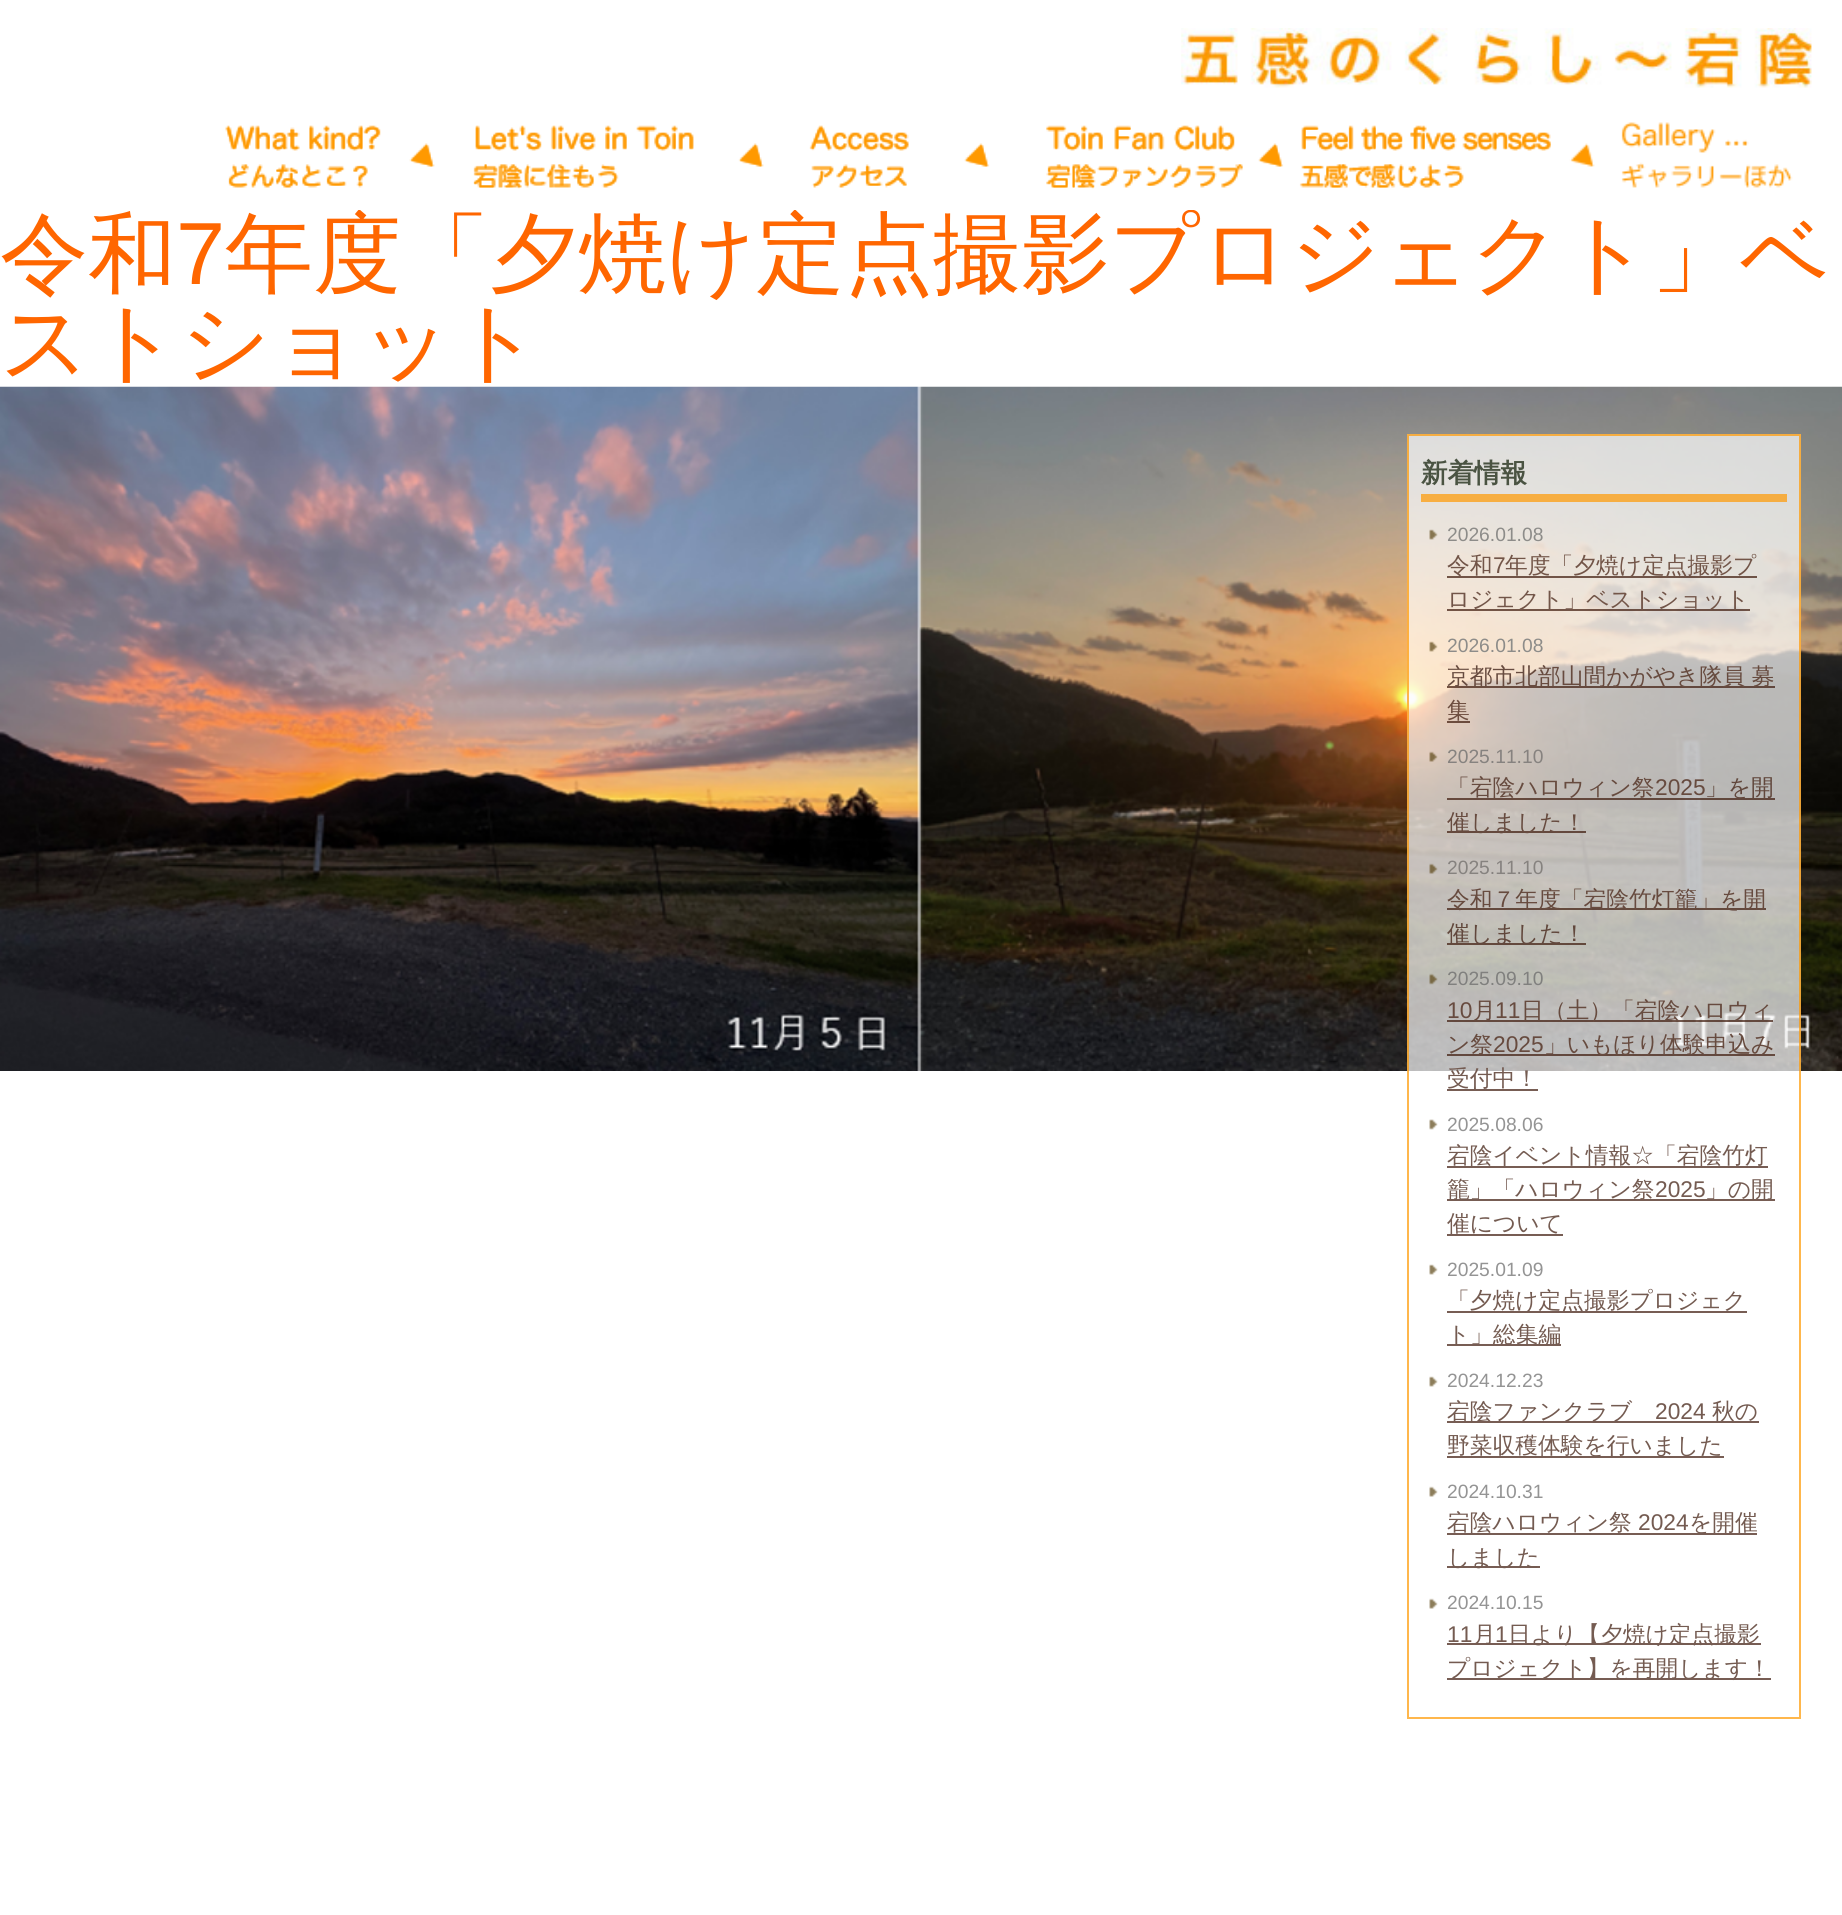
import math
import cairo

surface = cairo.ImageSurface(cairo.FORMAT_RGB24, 1842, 1915)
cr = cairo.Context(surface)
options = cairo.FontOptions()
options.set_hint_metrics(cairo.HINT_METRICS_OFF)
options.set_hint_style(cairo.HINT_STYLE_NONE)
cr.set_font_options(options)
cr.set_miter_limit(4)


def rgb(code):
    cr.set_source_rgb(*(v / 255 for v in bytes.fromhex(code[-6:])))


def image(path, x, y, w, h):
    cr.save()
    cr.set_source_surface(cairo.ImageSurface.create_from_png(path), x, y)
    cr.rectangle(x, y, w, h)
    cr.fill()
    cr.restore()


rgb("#ffffff")
cr.paint()
image("img/1.png", 1181, 28, 631, 60)
image("img/2.png", 225, 122, 1568, 67)
image("img/3.png", 225, 125, 210, 63)
image("img/4.png", 473, 125, 221, 64)
image("img/5.png", 739, 125, 250, 63)
image("img/6.png", 1046, 125, 237, 64)
image("img/7.png", 1300, 125, 251, 63)
image("img/8.png", 0, 386, 1842, 685)
cr.set_source_rgba(1, 1, 1, 0.7)
cr.rectangle(1407, 434, 394, 637)
cr.fill()
cr.rectangle(1408, 435, 392, 1283)
cr.set_source_rgba(1, 0.6, 0, 0.7)
cr.stroke()
cr.rectangle(1421, 494, 366, 8)
cr.fill()
image("img/9.png", 1429, 529, 9, 11)
cr.set_source_rgba(0.235, 0.094, 0.039, 0.7)
cr.rectangle(1447, 576, 310, 2)
cr.fill()
cr.rectangle(1447, 609, 303, 2)
cr.fill()
image("img/10.png", 1429, 641, 9, 11)
cr.rectangle(1447, 686, 328, 2)
cr.fill()
cr.rectangle(1447, 721, 23, 2)
cr.fill()
image("img/11.png", 1429, 751, 9, 11)
cr.rectangle(1447, 798, 328, 2)
cr.fill()
cr.rectangle(1447, 831, 139, 2)
cr.fill()
image("img/12.png", 1429, 863, 9, 11)
cr.rectangle(1447, 908, 319, 2)
cr.fill()
cr.rectangle(1447, 943, 139, 2)
cr.fill()
image("img/13.png", 1429, 973, 9, 12)
cr.rectangle(1447, 1020, 326, 2)
cr.fill()
cr.rectangle(1447, 1054, 328, 2)
cr.fill()
rgb("#775d54")
cr.rectangle(1447, 1089, 91, 2)
cr.fill()
image("img/14.png", 1429, 1119, 9, 11)
for x, y, w, h, color in [
    (1447, 1166, 321, 2, "#775d54"),
    (1447, 1199, 328, 2, "#775d54"),
    (1447, 1234, 116, 2, "#775d54"),
]:
    rgb(color)
    cr.rectangle(x, y, w, h)
    cr.fill()
image("img/15.png", 1429, 1264, 9, 11)
cr.rectangle(1447, 1311, 300, 2)
cr.fill()
cr.rectangle(1447, 1344, 114, 2)
cr.fill()
image("img/15.png", 1429, 1376, 9, 11)
cr.rectangle(1447, 1421, 312, 2)
cr.fill()
cr.rectangle(1447, 1456, 277, 2)
cr.fill()
image("img/16.png", 1429, 1486, 9, 11)
cr.rectangle(1447, 1533, 310, 2)
cr.fill()
cr.rectangle(1447, 1566, 93, 2)
cr.fill()
image("img/16.png", 1429, 1598, 9, 11)
cr.rectangle(1447, 1643, 314, 2)
cr.fill()
cr.rectangle(1447, 1678, 324, 2)
cr.fill()
cr.select_font_face("WenQuanYi Zen Hei Medium")
cr.set_font_size(88.25)
rgb("#ff6600")
cr.move_to(0, 284)
cr.show_text("令和")
cr.select_font_face("Liberation Sans")
cr.move_to(176, 284)
cr.show_text("7")
cr.save()
cr.rectangle(0, 210, 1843, 1552)
cr.clip()
cr.select_font_face("WenQuanYi Zen Hei Medium")
cr.move_to(225, 284)
cr.show_text("年度「夕焼け定点撮影プロジェクト」ベ")
cr.restore()
cr.select_font_face("WenQuanYi Zen Hei Medium")
cr.move_to(0, 372)
cr.show_text("ストショット")
cr.select_font_face("WenQuanYi Zen Hei", cairo.FONT_SLANT_NORMAL, cairo.FONT_WEIGHT_BOLD)
cr.set_font_size(26.5)
rgb("#4a5342")
cr.move_to(1421, 482)
cr.show_text("新着情報")
cr.select_font_face("Liberation Sans")
cr.set_font_size(19.25)
rgb("#8d8c89")
cr.move_to(1447, 541)
cr.show_text("2026.01.08")
cr.select_font_face("WenQuanYi Zen Hei Medium")
cr.set_font_size(22.75)
rgb("#725548")
cr.move_to(1447, 573)
cr.show_text("令和")
cr.select_font_face("Liberation Sans")
cr.move_to(1493, 573)
cr.show_text("7")
cr.select_font_face("WenQuanYi Zen Hei Medium")
cr.move_to(1505, 573)
cr.show_text("年度「夕焼け定点撮影プ")
cr.move_to(1447, 607)
cr.show_text("ロジェクト」ベストショット")
cr.select_font_face("Liberation Sans")
cr.set_font_size(19.25)
rgb("#8d8c89")
cr.move_to(1447, 652)
cr.show_text("2026.01.08")
cr.select_font_face("WenQuanYi Zen Hei Medium")
cr.set_font_size(22.75)
rgb("#674b3f")
cr.move_to(1447, 684)
cr.show_text("京都市北部山間かがやき隊員 募")
rgb("#6d4d3f")
cr.move_to(1447, 718)
cr.show_text("集")
cr.select_font_face("Liberation Sans")
cr.set_font_size(19.25)
rgb("#86827f")
cr.move_to(1447, 763)
cr.show_text("2025.11.10")
cr.select_font_face("WenQuanYi Zen Hei Medium")
cr.set_font_size(22.75)
rgb("#674b3f")
cr.move_to(1447, 795)
cr.show_text("「宕陰ハロウィン祭")
cr.select_font_face("Liberation Sans")
cr.move_to(1655, 795)
cr.show_text("2025")
cr.select_font_face("WenQuanYi Zen Hei Medium")
rgb("#61473c")
cr.move_to(1705, 795)
cr.show_text("」を開")
rgb("#674b3f")
cr.move_to(1447, 830)
cr.show_text("催しました！")
cr.select_font_face("Liberation Sans")
cr.set_font_size(19.25)
rgb("#86827f")
cr.move_to(1447, 874)
cr.show_text("2025.11.10")
cr.select_font_face("WenQuanYi Zen Hei Medium")
cr.set_font_size(22.75)
rgb("#674b3f")
cr.move_to(1447, 907)
cr.show_text("令和７年度「宕陰竹灯籠」を開")
rgb("#61473c")
cr.move_to(1447, 941)
cr.show_text("催しました！")
cr.select_font_face("Liberation Sans")
cr.set_font_size(19.25)
rgb("#80807e")
cr.move_to(1447, 985)
cr.show_text("2025.09.10")
cr.set_font_size(22.75)
rgb("#674b3f")
cr.move_to(1447, 1018)
cr.show_text("10")
cr.select_font_face("WenQuanYi Zen Hei Medium")
cr.move_to(1473, 1018)
cr.show_text("月")
cr.select_font_face("Liberation Sans")
cr.move_to(1495, 1018)
cr.show_text("11")
cr.select_font_face("WenQuanYi Zen Hei Medium")
cr.move_to(1521, 1018)
cr.show_text("日（土）「宕陰ハロウィ")
cr.move_to(1447, 1052)
cr.show_text("ン祭")
cr.select_font_face("Liberation Sans")
cr.move_to(1493, 1052)
cr.show_text("2025")
cr.select_font_face("WenQuanYi Zen Hei Medium")
cr.move_to(1544, 1052)
cr.show_text("」いもほり体験申込み")
rgb("#745b51")
cr.move_to(1447, 1086)
cr.show_text("受付中！")
cr.select_font_face("Liberation Sans")
cr.set_font_size(19.25)
rgb("#949494")
cr.move_to(1447, 1131)
cr.show_text("2025.08.06")
cr.select_font_face("WenQuanYi Zen Hei Medium")
cr.set_font_size(22.75)
rgb("#745b51")
cr.move_to(1447, 1163)
cr.show_text("宕陰イベント情報☆「宕陰竹灯")
cr.move_to(1447, 1197)
cr.show_text("籠」「ハロウィン祭")
cr.select_font_face("Liberation Sans")
cr.move_to(1655, 1197)
cr.show_text("2025")
cr.select_font_face("WenQuanYi Zen Hei Medium")
cr.move_to(1705, 1197)
cr.show_text("」の開")
cr.move_to(1447, 1231)
cr.show_text("催について")
cr.select_font_face("Liberation Sans")
cr.set_font_size(19.25)
rgb("#949494")
cr.move_to(1447, 1276)
cr.show_text("2025.01.09")
cr.select_font_face("WenQuanYi Zen Hei Medium")
cr.set_font_size(22.75)
rgb("#745b51")
cr.move_to(1447, 1308)
cr.show_text("「夕焼け定点撮影プロジェク")
cr.move_to(1447, 1342)
cr.show_text("ト」総集編")
cr.select_font_face("Liberation Sans")
cr.set_font_size(19.25)
rgb("#949494")
cr.move_to(1447, 1387)
cr.show_text("2024.12.23")
cr.select_font_face("WenQuanYi Zen Hei Medium")
cr.set_font_size(22.75)
rgb("#745b51")
cr.move_to(1447, 1419)
cr.show_text("宕陰ファンクラブ")
cr.select_font_face("Liberation Sans")
cr.move_to(1655, 1419)
cr.show_text("2024")
cr.select_font_face("WenQuanYi Zen Hei Medium")
cr.move_to(1712, 1419)
cr.show_text("秋の")
cr.move_to(1447, 1453)
cr.show_text("野菜収穫体験を行いました")
cr.select_font_face("Liberation Sans")
cr.set_font_size(19.25)
rgb("#949494")
cr.move_to(1447, 1498)
cr.show_text("2024.10.31")
cr.select_font_face("WenQuanYi Zen Hei Medium")
cr.set_font_size(22.75)
rgb("#745b51")
cr.move_to(1447, 1530)
cr.show_text("宕陰ハロウィン祭")
cr.select_font_face("Liberation Sans")
cr.move_to(1638, 1530)
cr.show_text("2024")
cr.select_font_face("WenQuanYi Zen Hei Medium")
cr.move_to(1689, 1530)
cr.show_text("を開催")
cr.move_to(1447, 1565)
cr.show_text("しました")
cr.select_font_face("Liberation Sans")
cr.set_font_size(19.25)
rgb("#949494")
cr.move_to(1447, 1609)
cr.show_text("2024.10.15")
cr.set_font_size(22.75)
rgb("#745b51")
cr.move_to(1447, 1642)
cr.show_text("11")
cr.select_font_face("WenQuanYi Zen Hei Medium")
cr.move_to(1473, 1642)
cr.show_text("月")
cr.select_font_face("Liberation Sans")
cr.move_to(1495, 1642)
cr.show_text("1")
cr.select_font_face("WenQuanYi Zen Hei Medium")
cr.move_to(1508, 1642)
cr.show_text("日より【夕焼け定点撮影")
cr.move_to(1447, 1676)
cr.show_text("プロジェクト】を再開します！")
surface.write_to_png("page.png")
